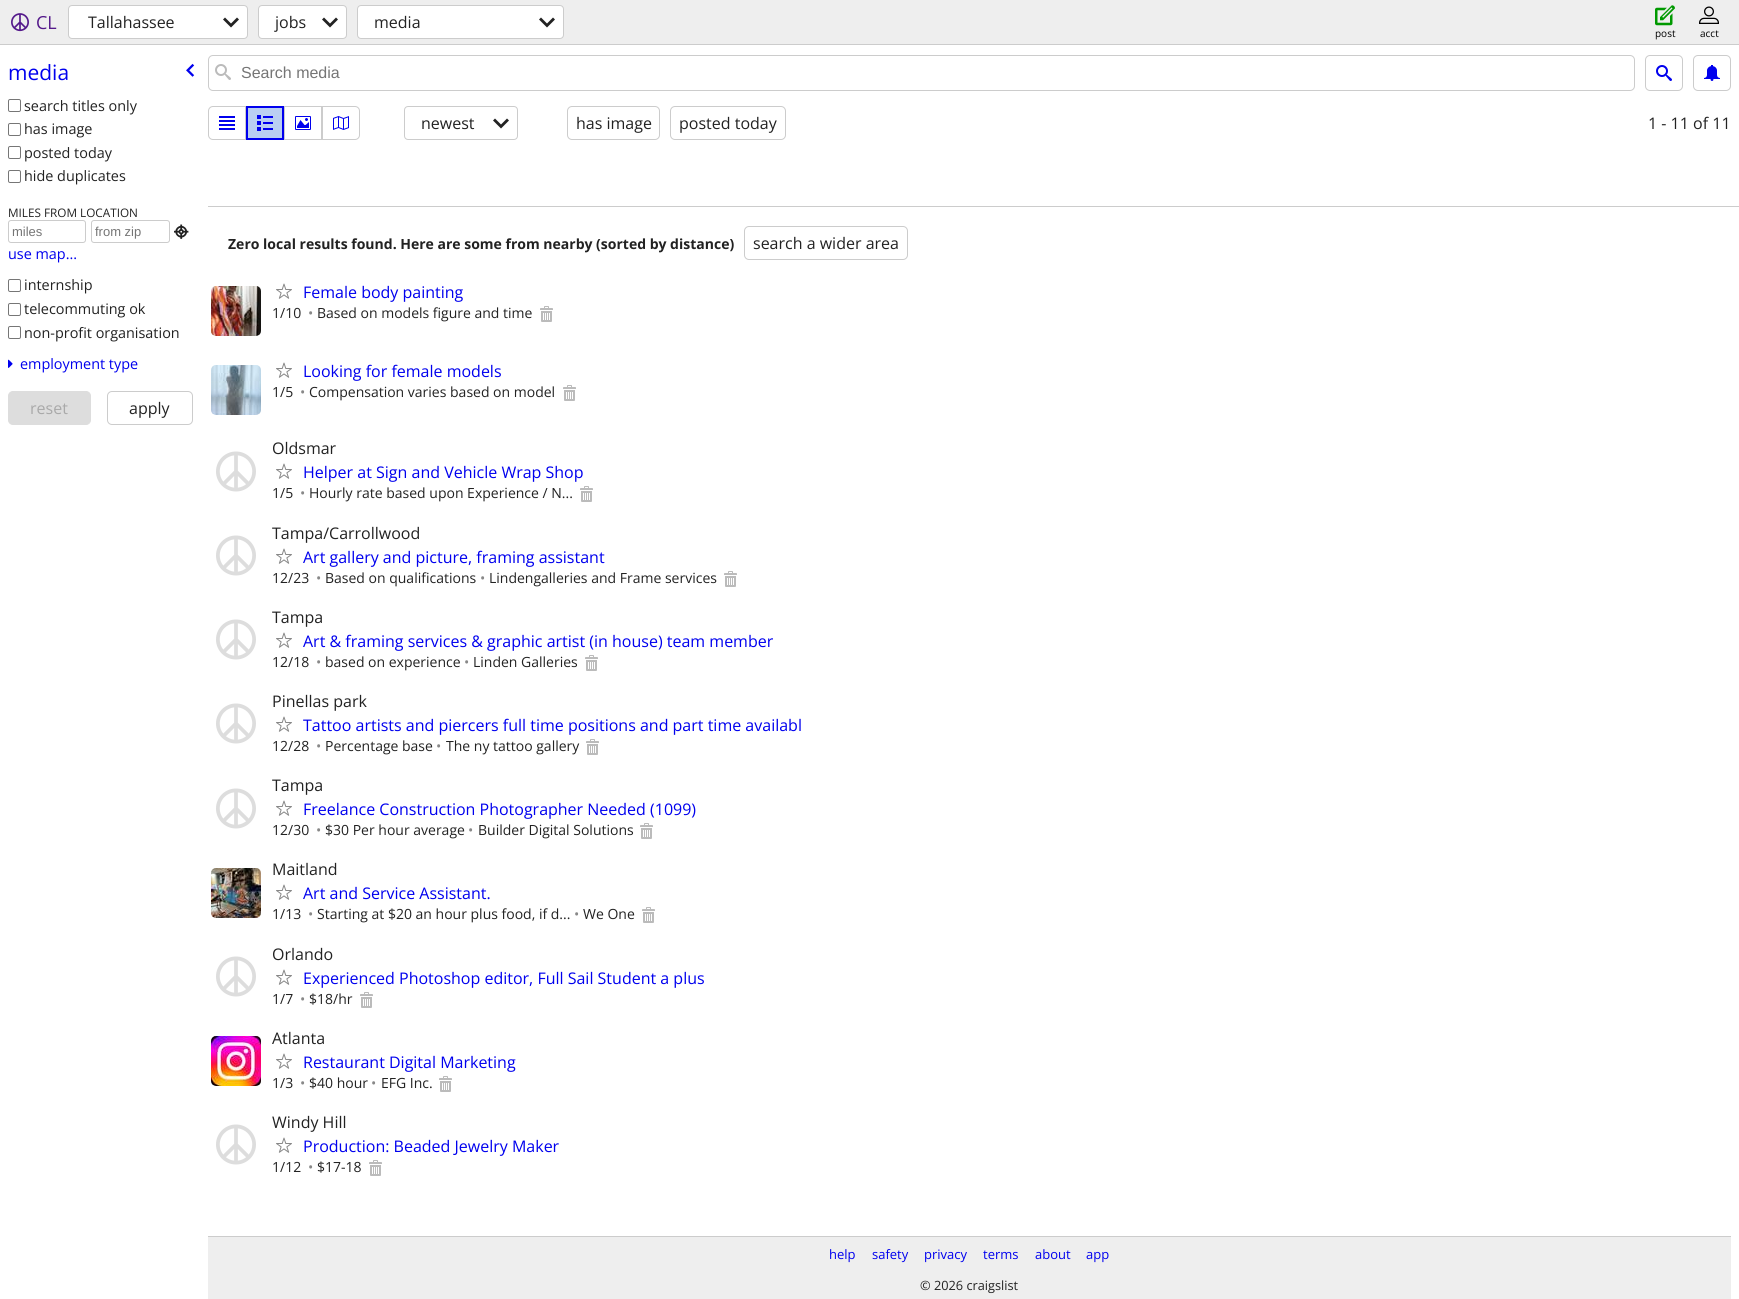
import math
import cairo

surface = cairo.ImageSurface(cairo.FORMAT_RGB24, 1739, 1299)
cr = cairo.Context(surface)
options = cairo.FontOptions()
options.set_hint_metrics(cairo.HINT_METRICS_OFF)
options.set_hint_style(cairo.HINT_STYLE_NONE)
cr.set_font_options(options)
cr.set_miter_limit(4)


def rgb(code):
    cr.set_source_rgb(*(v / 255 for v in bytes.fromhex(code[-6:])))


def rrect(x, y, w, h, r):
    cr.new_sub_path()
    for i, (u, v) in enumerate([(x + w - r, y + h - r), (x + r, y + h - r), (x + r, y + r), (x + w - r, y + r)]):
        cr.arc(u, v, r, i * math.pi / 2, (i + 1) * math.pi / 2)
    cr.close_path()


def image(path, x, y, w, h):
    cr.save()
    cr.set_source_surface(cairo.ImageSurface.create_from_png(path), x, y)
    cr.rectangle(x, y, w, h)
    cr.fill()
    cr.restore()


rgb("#ffffff")
cr.paint()
rgb("#eeeeee")
cr.rectangle(0, 0, 1739, 44)
cr.fill()
rgb("#cccccc")
cr.rectangle(0, 44, 1739, 1)
cr.fill()
image("img/1.png", 11, 13, 18, 19)
rgb("#ffffff")
rrect(68.5, 5.5, 179, 33, 3.5)
cr.fill_preserve()
rgb("#cccccc")
cr.set_line_width(1)
cr.stroke()
image("img/2.png", 223, 17, 16, 11)
rgb("#ffffff")
rrect(258.5, 5.5, 88, 33, 3.5)
cr.fill_preserve()
rgb("#cccccc")
cr.stroke()
image("img/2.png", 322, 17, 16, 11)
rgb("#ffffff")
rrect(357.5, 5.5, 206, 33, 3.5)
cr.fill_preserve()
rgb("#cccccc")
cr.stroke()
image("img/2.png", 539, 17, 16, 11)
image("img/3.png", 1655, 5, 20, 21)
image("img/4.png", 1699, 6, 20, 18)
image("img/5.png", 186, 63, 9, 14)
rrect(8.5, 99.5, 12, 12, 1.5)
rgb("#767676")
cr.stroke()
rrect(8.5, 123.5, 12, 12, 1.5)
cr.stroke()
rrect(8.5, 146.5, 12, 12, 1.5)
cr.stroke()
rrect(8.5, 170.5, 12, 12, 1.5)
cr.stroke()
rrect(8.5, 220.5, 77, 22, 2.5)
rgb("#cccccc")
cr.stroke()
rrect(91.5, 220.5, 78, 22, 2.5)
cr.stroke()
image("img/6.png", 174, 224, 15, 15)
rrect(8.5, 279.5, 12, 12, 1.5)
rgb("#767676")
cr.stroke()
rrect(8.5, 303.5, 12, 12, 1.5)
cr.stroke()
rrect(8.5, 326.5, 12, 12, 1.5)
cr.stroke()
image("img/7.png", 8, 359, 5, 9)
rgb("#dddddd")
rrect(8.5, 391.5, 82, 33, 4.5)
cr.fill_preserve()
cr.stroke()
rrect(107.5, 391.5, 85, 33, 4.5)
rgb("#cccccc")
cr.stroke()
rrect(208.5, 55.5, 1426, 35, 4.5)
cr.stroke()
image("img/8.png", 215, 64, 16, 16)
rrect(1645.5, 55.5, 37, 35, 4.5)
cr.stroke()
image("img/9.png", 1656, 65, 16, 16)
rrect(1693.5, 55.5, 37, 35, 4.5)
cr.stroke()
image("img/10.png", 1704, 65, 16, 16)
cr.new_path()
cr.move_to(213, 106.5)
cr.line_to(245.5, 106.5)
cr.line_to(245.5, 139.5)
cr.line_to(213, 139.5)
cr.curve_to(210.5, 139.5, 208.5, 137.5, 208.5, 135)
cr.line_to(208.5, 111)
cr.curve_to(208.5, 108.5, 210.5, 106.5, 213, 106.5)
cr.close_path()
cr.stroke()
image("img/11.png", 219, 116, 16, 14)
rgb("#bacff2")
cr.rectangle(247, 107, 36, 32)
cr.fill_preserve()
rgb("#0000ee")
cr.set_line_width(2)
cr.stroke()
image("img/12.png", 257, 115, 16, 16)
cr.rectangle(284.5, 106.5, 37, 33)
rgb("#cccccc")
cr.set_line_width(1)
cr.stroke()
image("img/13.png", 295, 116, 16, 14)
cr.new_path()
cr.move_to(322.5, 106.5)
cr.line_to(355, 106.5)
cr.curve_to(357.5, 106.5, 359.5, 108.5, 359.5, 111)
cr.line_to(359.5, 135)
cr.curve_to(359.5, 137.5, 357.5, 139.5, 355, 139.5)
cr.line_to(322.5, 139.5)
cr.close_path()
cr.stroke()
image("img/14.png", 333, 116, 16, 14)
rrect(404.5, 106.5, 113, 33, 3.5)
cr.stroke()
image("img/2.png", 493, 118, 16, 11)
rrect(567.5, 106.5, 92, 33, 4.5)
cr.stroke()
rrect(670.5, 106.5, 115, 33, 4.5)
cr.stroke()
cr.rectangle(208, 206, 1531, 1)
cr.fill()
rrect(744.5, 226.5, 163, 33, 4.5)
cr.stroke()
image("img/15.png", 211, 286, 50, 50)
image("img/16.png", 276, 283, 16, 16)
image("img/17.png", 540, 306, 13, 16)
image("img/18.png", 211, 365, 50, 50)
image("img/16.png", 276, 362, 16, 16)
image("img/17.png", 563, 385, 13, 16)
image("img/19.png", 216, 451, 40, 41)
image("img/16.png", 276, 463, 16, 16)
image("img/17.png", 580, 486, 13, 16)
image("img/19.png", 216, 535, 40, 41)
image("img/16.png", 276, 548, 16, 16)
image("img/17.png", 724, 571, 13, 16)
image("img/19.png", 216, 619, 40, 41)
image("img/16.png", 276, 632, 16, 16)
image("img/17.png", 585, 655, 13, 16)
image("img/19.png", 216, 703, 40, 41)
image("img/16.png", 276, 716, 16, 16)
image("img/17.png", 586, 739, 13, 16)
image("img/19.png", 216, 788, 40, 41)
image("img/16.png", 276, 800, 16, 16)
image("img/17.png", 640, 823, 13, 16)
image("img/20.png", 211, 868, 50, 50)
image("img/16.png", 276, 884, 16, 16)
image("img/17.png", 642, 907, 13, 16)
image("img/19.png", 216, 956, 40, 41)
image("img/16.png", 276, 969, 16, 16)
image("img/17.png", 360, 992, 13, 16)
image("img/21.png", 211, 1036, 50, 50)
image("img/16.png", 276, 1053, 16, 16)
image("img/17.png", 439, 1076, 13, 16)
image("img/19.png", 216, 1124, 40, 41)
image("img/16.png", 276, 1137, 16, 16)
image("img/17.png", 369, 1160, 13, 16)
rgb("#eeeeee")
cr.rectangle(208, 1237, 1523, 62)
cr.fill()
rgb("#cccccc")
cr.rectangle(208, 1236, 1523, 1)
cr.fill()
cr.select_font_face("Open Sans")
cr.set_font_size(18)
rgb("#551a8b")
cr.move_to(36, 29)
cr.show_text("CL")
cr.set_font_size(16)
rgb("#222222")
for x, y, s in [
    (88, 28, "Tallahassee"),
    (275, 28, "jobs"),
    (374, 28, "media"),
]:
    cr.move_to(x, y)
    cr.show_text(s)
cr.set_font_size(10)
rgb("#000000")
cr.move_to(1655, 37)
cr.show_text("post")
cr.move_to(1700, 37)
cr.show_text("acct")
cr.set_font_size(21)
rgb("#0000ee")
cr.move_to(8, 80)
cr.show_text("media")
cr.set_font_size(14.4)
rgb("#222222")
for x, y, s in [
    (24, 111, "search titles only"),
    (24, 134, "has image"),
    (24, 158, "posted today"),
    (24, 181, "hide duplicates"),
]:
    cr.move_to(x, y)
    cr.show_text(s)
cr.set_font_size(11.75)
cr.move_to(8, 217)
cr.show_text("MILES FROM LOCATION")
cr.select_font_face("Liberation Sans")
cr.set_font_size(13)
rgb("#757575")
cr.move_to(12, 236)
cr.show_text("miles")
cr.move_to(95, 236)
cr.show_text("from zip")
cr.select_font_face("Open Sans")
cr.set_font_size(14.4)
rgb("#0000ee")
cr.move_to(8, 259)
cr.show_text("use map...")
rgb("#222222")
for x, y, s in [
    (24, 290, "internship"),
    (24, 314, "telecommuting ok"),
    (24, 338, "non-profit organisation"),
]:
    cr.move_to(x, y)
    cr.show_text(s)
rgb("#0000ee")
cr.move_to(20, 369)
cr.show_text("employment type")
cr.set_font_size(16)
rgb("#a9a9a9")
cr.move_to(30, 414)
cr.show_text("reset")
rgb("#222222")
cr.move_to(129, 414)
cr.show_text("apply")
cr.select_font_face("Liberation Sans")
rgb("#757575")
cr.move_to(241, 78)
cr.show_text("Search media")
cr.select_font_face("Open Sans")
rgb("#222222")
for x, y, s in [
    (421, 129, "newest"),
    (576, 129, "has image"),
    (679, 129, "posted today"),
    (1648, 129, "1 - 11 of 11"),
]:
    cr.move_to(x, y)
    cr.show_text(s)
cr.select_font_face("Open Sans", cairo.FONT_SLANT_NORMAL, cairo.FONT_WEIGHT_BOLD)
cr.set_font_size(14)
cr.move_to(228, 249)
cr.show_text("Zero local results found. Here are some from nearby (sorted by distance)")
cr.select_font_face("Open Sans")
cr.set_font_size(16)
cr.move_to(753, 249)
cr.show_text("search a wider area")
rgb("#0000ee")
cr.move_to(303, 298)
cr.show_text("Female body painting")
cr.set_font_size(14)
rgb("#222222")
cr.move_to(272, 318)
cr.show_text("1/10")
rgb("#888888")
cr.move_to(308, 318)
cr.show_text("•")
rgb("#222222")
cr.move_to(317, 318)
cr.show_text("Based on models figure and time")
cr.set_font_size(16)
rgb("#0000ee")
cr.move_to(303, 377)
cr.show_text("Looking for female models")
cr.set_font_size(14)
rgb("#222222")
cr.move_to(272, 397)
cr.show_text("1/5")
rgb("#888888")
cr.move_to(300, 397)
cr.show_text("•")
rgb("#222222")
cr.move_to(309, 397)
cr.show_text("Compensation varies based on model")
cr.set_font_size(16)
cr.move_to(272, 454)
cr.show_text("Oldsmar")
rgb("#0000ee")
cr.move_to(303, 478)
cr.show_text("Helper at Sign and Vehicle Wrap Shop")
cr.set_font_size(14)
rgb("#222222")
cr.move_to(272, 498)
cr.show_text("1/5")
rgb("#888888")
cr.move_to(300, 498)
cr.show_text("•")
rgb("#222222")
cr.move_to(309, 498)
cr.show_text("Hourly rate based upon Experience / N...")
cr.set_font_size(16)
cr.move_to(272, 539)
cr.show_text("Tampa/Carrollwood")
rgb("#0000ee")
cr.move_to(303, 563)
cr.show_text("Art gallery and picture, framing assistant")
cr.set_font_size(14)
rgb("#222222")
cr.move_to(272, 583)
cr.show_text("12/23")
rgb("#888888")
cr.move_to(316, 583)
cr.show_text("•")
rgb("#222222")
cr.move_to(325, 583)
cr.show_text("Based on qualifications")
rgb("#888888")
cr.move_to(480, 583)
cr.show_text("•")
rgb("#222222")
cr.move_to(489, 583)
cr.show_text("Lindengalleries and Frame services")
cr.set_font_size(16)
cr.move_to(272, 623)
cr.show_text("Tampa")
rgb("#0000ee")
cr.move_to(303, 647)
cr.show_text("Art & framing services & graphic artist (in house) team member")
cr.set_font_size(14)
rgb("#222222")
cr.move_to(272, 667)
cr.show_text("12/18")
rgb("#888888")
cr.move_to(316, 667)
cr.show_text("•")
rgb("#222222")
cr.move_to(325, 667)
cr.show_text("based on experience")
rgb("#888888")
cr.move_to(464, 667)
cr.show_text("•")
rgb("#222222")
cr.move_to(473, 667)
cr.show_text("Linden Galleries")
cr.set_font_size(16)
cr.move_to(272, 707)
cr.show_text("Pinellas park")
rgb("#0000ee")
cr.move_to(303, 731)
cr.show_text("Tattoo artists and piercers full time positions and part time availabl")
cr.set_font_size(14)
rgb("#222222")
cr.move_to(272, 751)
cr.show_text("12/28")
rgb("#888888")
cr.move_to(316, 751)
cr.show_text("•")
rgb("#222222")
cr.move_to(325, 751)
cr.show_text("Percentage base")
rgb("#888888")
cr.move_to(436, 751)
cr.show_text("•")
rgb("#222222")
cr.move_to(446, 751)
cr.show_text("The ny tattoo gallery")
cr.set_font_size(16)
cr.move_to(272, 791)
cr.show_text("Tampa")
rgb("#0000ee")
cr.move_to(303, 815)
cr.show_text("Freelance Construction Photographer Needed (1099)")
cr.set_font_size(14)
rgb("#222222")
cr.move_to(272, 835)
cr.show_text("12/30")
rgb("#888888")
cr.move_to(316, 835)
cr.show_text("•")
rgb("#222222")
cr.move_to(325, 835)
cr.show_text("$30 Per hour average")
rgb("#888888")
cr.move_to(468, 835)
cr.show_text("•")
rgb("#222222")
cr.move_to(478, 835)
cr.show_text("Builder Digital Solutions")
cr.set_font_size(16)
cr.move_to(272, 875)
cr.show_text("Maitland")
rgb("#0000ee")
cr.move_to(303, 899)
cr.show_text("Art and Service Assistant.")
cr.set_font_size(14)
rgb("#222222")
cr.move_to(272, 919)
cr.show_text("1/13")
rgb("#888888")
cr.move_to(308, 919)
cr.show_text("•")
rgb("#222222")
cr.move_to(317, 919)
cr.show_text("Starting at $20 an hour plus food, if d...")
rgb("#888888")
cr.move_to(574, 919)
cr.show_text("•")
rgb("#222222")
cr.move_to(583, 919)
cr.show_text("We One")
cr.set_font_size(16)
cr.move_to(272, 960)
cr.show_text("Orlando")
rgb("#0000ee")
cr.move_to(303, 984)
cr.show_text("Experienced Photoshop editor, Full Sail Student a plus")
cr.set_font_size(14)
rgb("#222222")
cr.move_to(272, 1004)
cr.show_text("1/7")
rgb("#888888")
cr.move_to(300, 1004)
cr.show_text("•")
rgb("#222222")
cr.move_to(309, 1004)
cr.show_text("$18/hr")
cr.set_font_size(16)
cr.move_to(272, 1044)
cr.show_text("Atlanta")
rgb("#0000ee")
cr.move_to(303, 1068)
cr.show_text("Restaurant Digital Marketing")
cr.set_font_size(14)
rgb("#222222")
cr.move_to(272, 1088)
cr.show_text("1/3")
rgb("#888888")
cr.move_to(300, 1088)
cr.show_text("•")
rgb("#222222")
cr.move_to(309, 1088)
cr.show_text("$40 hour")
rgb("#888888")
cr.move_to(371, 1088)
cr.show_text("•")
rgb("#222222")
cr.move_to(381, 1088)
cr.show_text("EFG Inc.")
cr.set_font_size(16)
cr.move_to(272, 1128)
cr.show_text("Windy Hill")
rgb("#0000ee")
cr.move_to(303, 1152)
cr.show_text("Production: Beaded Jewelry Maker")
cr.set_font_size(14)
rgb("#222222")
cr.move_to(272, 1172)
cr.show_text("1/12")
rgb("#888888")
cr.move_to(308, 1172)
cr.show_text("•")
rgb("#222222")
cr.move_to(317, 1172)
cr.show_text("$17-18")
cr.set_font_size(13)
rgb("#0000ee")
for x, y, s in [
    (829, 1259, "help"),
    (872, 1259, "safety"),
    (924, 1259, "privacy"),
    (983, 1259, "terms"),
    (1035, 1259, "about"),
    (1086, 1259, "app"),
]:
    cr.move_to(x, y)
    cr.show_text(s)
cr.set_font_size(12.75)
rgb("#222222")
cr.move_to(920, 1290)
cr.show_text("© 2026 craigslist")
surface.write_to_png("page.png")
